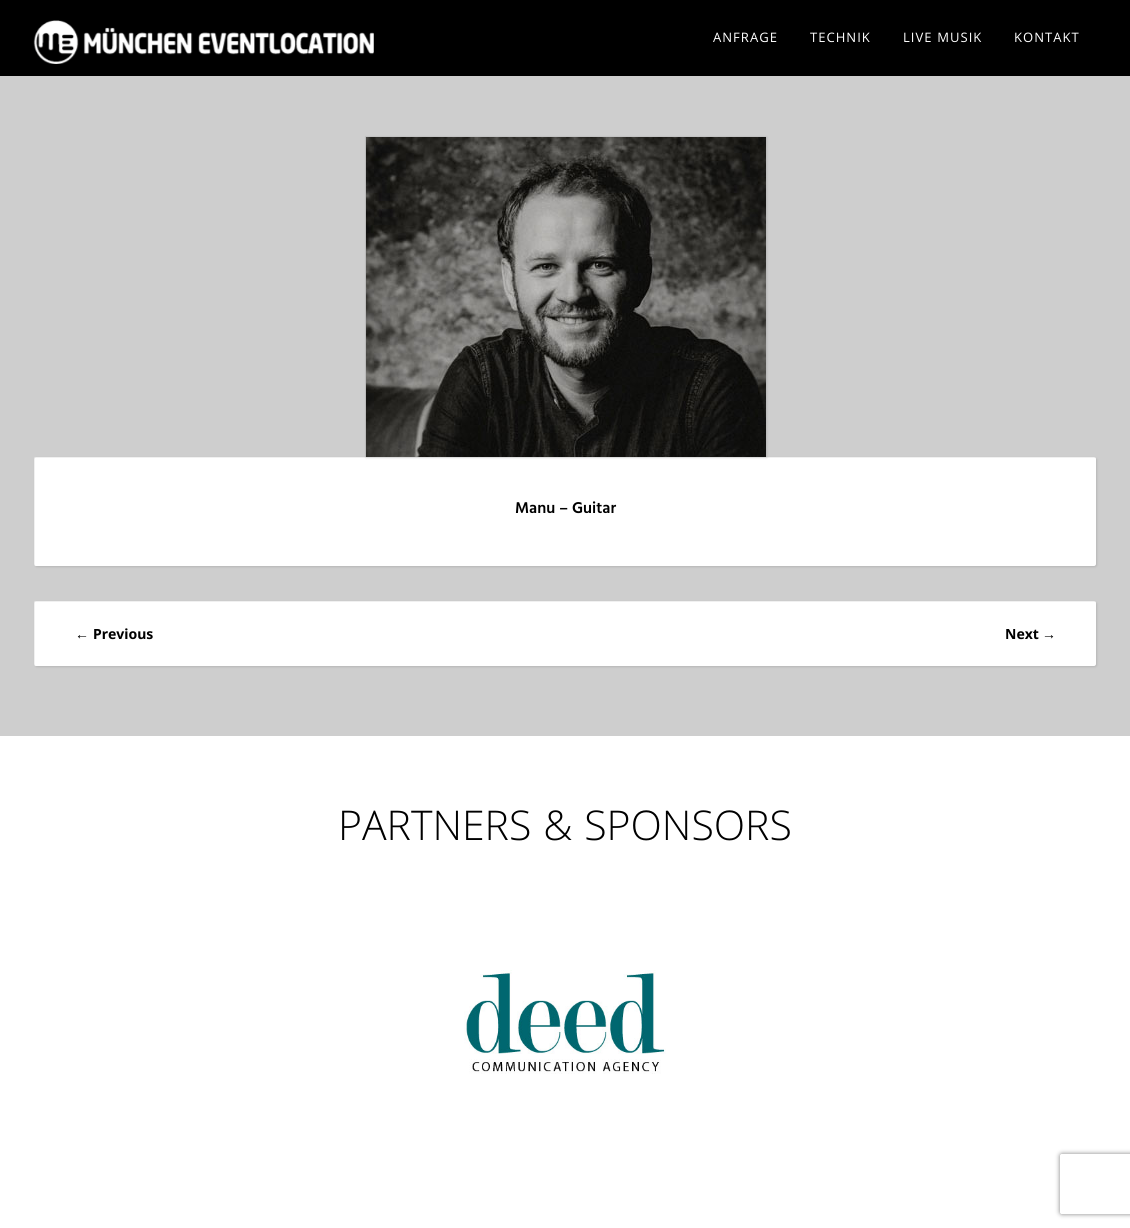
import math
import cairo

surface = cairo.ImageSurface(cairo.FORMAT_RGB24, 1130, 1228)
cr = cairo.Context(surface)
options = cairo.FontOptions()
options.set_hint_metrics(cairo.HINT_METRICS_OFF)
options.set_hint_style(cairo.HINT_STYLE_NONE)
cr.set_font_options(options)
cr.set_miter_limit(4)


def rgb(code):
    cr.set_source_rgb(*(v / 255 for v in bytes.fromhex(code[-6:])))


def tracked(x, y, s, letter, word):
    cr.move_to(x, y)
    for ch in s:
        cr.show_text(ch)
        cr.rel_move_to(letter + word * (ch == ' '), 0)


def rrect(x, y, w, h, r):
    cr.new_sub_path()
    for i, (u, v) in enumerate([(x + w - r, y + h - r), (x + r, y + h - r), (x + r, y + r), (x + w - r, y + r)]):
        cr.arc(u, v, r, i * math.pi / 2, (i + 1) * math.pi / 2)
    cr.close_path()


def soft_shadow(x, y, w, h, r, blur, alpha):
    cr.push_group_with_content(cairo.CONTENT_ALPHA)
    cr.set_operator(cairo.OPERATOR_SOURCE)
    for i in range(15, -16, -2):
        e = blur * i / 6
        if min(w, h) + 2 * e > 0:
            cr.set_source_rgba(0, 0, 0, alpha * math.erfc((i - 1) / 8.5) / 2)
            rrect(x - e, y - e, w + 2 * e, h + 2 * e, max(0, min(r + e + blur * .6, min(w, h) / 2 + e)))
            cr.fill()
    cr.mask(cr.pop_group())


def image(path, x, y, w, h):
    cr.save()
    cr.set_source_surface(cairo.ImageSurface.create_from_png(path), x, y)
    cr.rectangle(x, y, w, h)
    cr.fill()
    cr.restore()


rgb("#000000")
cr.paint()
image("img/1.png", 33, 20, 341, 44)
rgb("#cecece")
cr.rectangle(0, 76, 1130, 660)
cr.fill()
rgb("#000000")
soft_shadow(35, 458, 1062, 109, 2, 1, 0.12)
rgb("#ffffff")
rrect(34, 457, 1062, 109, 2)
cr.fill()
cr.set_source_rgba(0, 0, 0, 0.06)
cr.rectangle(35, 457, 1060, 1)
cr.fill()
rgb("#000000")
soft_shadow(366, 137, 401, 321, 0, 1, 0.12)
rgb("#c2c2c2")
cr.new_path()
cr.move_to(365, 136)
cr.line_to(766, 136)
cr.line_to(766, 137)
cr.line_to(366, 137)
cr.close_path()
cr.fill()
cr.set_source_rgba(0, 0, 0, 0.06)
cr.new_path()
cr.move_to(365, 457)
cr.line_to(365, 136)
cr.line_to(366, 137)
cr.line_to(366, 457)
cr.close_path()
cr.fill()
image("img/2.png", 366, 137, 400, 320)
cr.rectangle(34, 458, 1, 107)
cr.fill()
rgb("#000000")
soft_shadow(35, 602, 1062, 65, 2, 1, 0.12)
rgb("#ffffff")
rrect(34, 601, 1062, 65, 2)
cr.fill()
cr.set_source_rgba(0, 0, 0, 0.06)
cr.rectangle(35, 601, 1060, 1)
cr.fill()
cr.rectangle(34, 602, 1, 63)
cr.fill()
rgb("#ffffff")
cr.rectangle(0, 736, 1130, 492)
cr.fill()
image("img/3.png", 464, 970, 202, 104)
cr.save()
cr.set_fill_rule(cairo.FILL_RULE_EVEN_ODD)
cr.new_path()
cr.move_to(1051, 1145)
cr.line_to(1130, 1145)
cr.line_to(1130, 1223)
cr.line_to(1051, 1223)
cr.close_path()
cr.move_to(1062, 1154)
cr.line_to(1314, 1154)
cr.curve_to(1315, 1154, 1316, 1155, 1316, 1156)
cr.line_to(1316, 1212)
cr.curve_to(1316, 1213, 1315, 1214, 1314, 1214)
cr.line_to(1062, 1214)
cr.curve_to(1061, 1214, 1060, 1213, 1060, 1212)
cr.line_to(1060, 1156)
cr.curve_to(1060, 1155, 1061, 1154, 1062, 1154)
cr.close_path()
cr.clip()
rgb("#808080")
soft_shadow(1060, 1154, 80, 60, 2, 2.5, 1)
cr.restore()
cr.select_font_face("Khula")
cr.set_font_size(14)
for x, y, s in [
    (713, 42, "ANFRAGE"),
    (810, 42, "TECHNIK"),
    (903, 42, "LIVE MUSIK"),
    (1014, 42, "KONTAKT"),
]:
    tracked(x, y, s, 1, 0)
cr.select_font_face("Hind SemiBold")
cr.set_font_size(16)
rgb("#000000")
cr.move_to(515, 513)
cr.show_text("Manu – Guitar")
cr.select_font_face("Liberation Sans", cairo.FONT_SLANT_NORMAL, cairo.FONT_WEIGHT_BOLD)
cr.set_font_size(14)
cr.move_to(75, 639)
cr.show_text("←")
cr.select_font_face("Noto Sans", cairo.FONT_SLANT_NORMAL, cairo.FONT_WEIGHT_BOLD)
cr.move_to(93, 639)
cr.show_text("Previous")
cr.move_to(1005, 639)
cr.show_text("Next")
cr.select_font_face("Liberation Sans", cairo.FONT_SLANT_NORMAL, cairo.FONT_WEIGHT_BOLD)
cr.move_to(1042, 639)
cr.show_text("→")
cr.select_font_face("Khula Light")
cr.set_font_size(44)
cr.move_to(338, 840)
cr.show_text("PARTNERS & SPONSORS")
surface.write_to_png("page.png")
